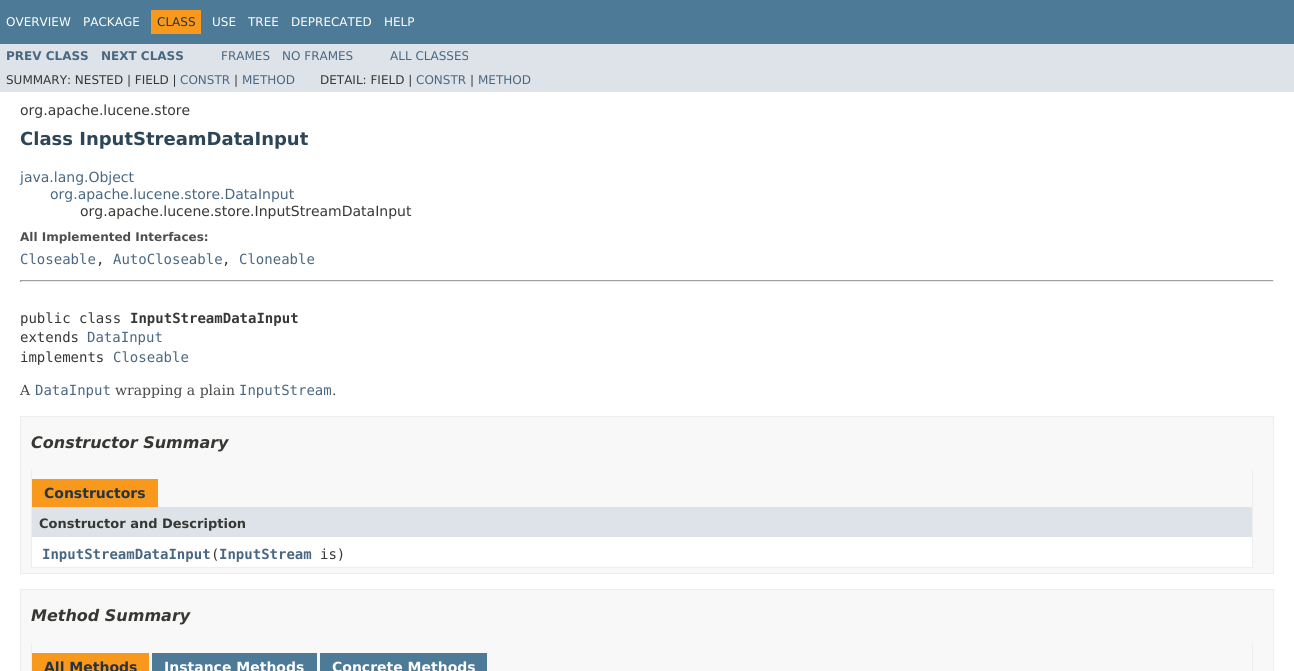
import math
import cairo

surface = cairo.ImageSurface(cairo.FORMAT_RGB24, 1294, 671)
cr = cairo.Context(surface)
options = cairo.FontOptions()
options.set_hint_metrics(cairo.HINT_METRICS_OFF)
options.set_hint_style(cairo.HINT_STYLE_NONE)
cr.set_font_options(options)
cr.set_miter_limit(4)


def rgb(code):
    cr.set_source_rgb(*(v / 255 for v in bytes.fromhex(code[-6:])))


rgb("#ffffff")
cr.paint()
for x, y, w, h, color in [
    (0, 0, 1294, 44, "#4d7a97"),
    (151, 10, 50, 24, "#f8981d"),
    (0, 44, 1294, 48, "#dee3e9"),
    (20, 280, 1254, 1, "#9f9f9f"),
    (1273, 280, 1, 2, "#eeeeee"),
    (20, 281, 1254, 1, "#eeeeee"),
    (20, 280, 1, 2, "#9f9f9f"),
]:
    rgb(color)
    cr.rectangle(x, y, w, h)
    cr.fill()
rgb("#f8f8f8")
cr.rectangle(20.5, 416.5, 1253, 157)
cr.fill_preserve()
rgb("#ededed")
cr.set_line_width(1)
cr.stroke()
for x, y, w, h, color in [
    (1252, 469, 1, 99, "#eeeeee"),
    (31, 567, 1222, 1, "#eeeeee"),
    (31, 469, 1, 99, "#eeeeee"),
    (32, 479, 126, 28, "#f8981d"),
    (32, 507, 1220, 30, "#dee3e9"),
    (32, 537, 1220, 30, "#ffffff"),
]:
    rgb(color)
    cr.rectangle(x, y, w, h)
    cr.fill()
rgb("#f8f8f8")
cr.rectangle(20.5, 589.5, 1253, 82)
cr.fill_preserve()
rgb("#ededed")
cr.stroke()
for x, y, w, h, color in [
    (1252, 643, 1, 28, "#eeeeee"),
    (31, 643, 1, 28, "#eeeeee"),
    (32, 653, 117, 18, "#f8981d"),
    (152, 653, 165, 18, "#4d7a97"),
    (320, 653, 167, 18, "#4d7a97"),
]:
    rgb(color)
    cr.rectangle(x, y, w, h)
    cr.fill()
cr.select_font_face("DejaVu Sans")
cr.set_font_size(12)
rgb("#ffffff")
cr.move_to(6, 26)
cr.show_text("OVERVIEW")
cr.move_to(83, 26)
cr.show_text("PACKAGE")
rgb("#253441")
cr.move_to(157, 26)
cr.show_text("CLASS")
rgb("#ffffff")
for x, y, s in [
    (212, 26, "USE"),
    (248, 26, "TREE"),
    (291, 26, "DEPRECATED"),
    (384, 26, "HELP"),
]:
    cr.move_to(x, y)
    cr.show_text(s)
cr.select_font_face("DejaVu Sans", cairo.FONT_SLANT_NORMAL, cairo.FONT_WEIGHT_BOLD)
rgb("#4a6782")
cr.move_to(6, 60)
cr.show_text("PREV CLASS")
cr.move_to(101, 60)
cr.show_text("NEXT CLASS")
cr.select_font_face("DejaVu Sans")
for x, y, s in [
    (221, 60, "FRAMES"),
    (282, 60, "NO FRAMES"),
    (390, 60, "ALL CLASSES"),
]:
    cr.move_to(x, y)
    cr.show_text(s)
rgb("#353833")
cr.move_to(6, 84)
cr.show_text("SUMMARY: NESTED | FIELD |")
rgb("#4a6782")
cr.move_to(180, 84)
cr.show_text("CONSTR")
rgb("#353833")
cr.move_to(234, 84)
cr.show_text("|")
rgb("#4a6782")
cr.move_to(242, 84)
cr.show_text("METHOD")
rgb("#353833")
cr.move_to(320, 84)
cr.show_text("DETAIL: FIELD |")
rgb("#4a6782")
cr.move_to(416, 84)
cr.show_text("CONSTR")
rgb("#353833")
cr.move_to(470, 84)
cr.show_text("|")
rgb("#4a6782")
cr.move_to(478, 84)
cr.show_text("METHOD")
cr.set_font_size(14)
rgb("#353833")
cr.move_to(20, 115)
cr.show_text("org.apache.lucene.store")
cr.select_font_face("DejaVu Sans", cairo.FONT_SLANT_NORMAL, cairo.FONT_WEIGHT_BOLD)
cr.set_font_size(18)
rgb("#2c4557")
cr.move_to(20, 145)
cr.show_text("Class InputStreamDataInput")
cr.select_font_face("DejaVu Sans")
cr.set_font_size(14)
rgb("#4a6782")
cr.move_to(20, 182)
cr.show_text("java.lang.Object")
cr.move_to(50, 199)
cr.show_text("org.apache.lucene.store.DataInput")
rgb("#353833")
cr.move_to(80, 216)
cr.show_text("org.apache.lucene.store.InputStreamDataInput")
cr.select_font_face("DejaVu Sans", cairo.FONT_SLANT_NORMAL, cairo.FONT_WEIGHT_BOLD)
cr.set_font_size(12)
rgb("#4e4e4e")
cr.move_to(20, 241)
cr.show_text("All Implemented Interfaces:")
cr.select_font_face("DejaVu Sans Mono")
cr.set_font_size(14)
rgb("#4a6782")
cr.move_to(20, 264)
cr.show_text("Closeable")
rgb("#353833")
cr.move_to(96, 264)
cr.show_text(",")
rgb("#4a6782")
cr.move_to(113, 264)
cr.show_text("AutoCloseable")
rgb("#353833")
cr.move_to(222, 264)
cr.show_text(",")
rgb("#4a6782")
cr.move_to(239, 264)
cr.show_text("Cloneable")
rgb("#353833")
cr.move_to(20, 323)
cr.show_text("public class")
cr.select_font_face("DejaVu Sans Mono", cairo.FONT_SLANT_NORMAL, cairo.FONT_WEIGHT_BOLD)
cr.move_to(130, 323)
cr.show_text("InputStreamDataInput")
cr.select_font_face("DejaVu Sans Mono")
cr.move_to(20, 342)
cr.show_text("extends")
rgb("#4a6782")
cr.move_to(87, 342)
cr.show_text("DataInput")
rgb("#353833")
cr.move_to(20, 362)
cr.show_text("implements")
rgb("#4a6782")
cr.move_to(113, 362)
cr.show_text("Closeable")
cr.select_font_face("DejaVu Serif")
rgb("#474747")
cr.move_to(20, 395)
cr.show_text("A")
cr.select_font_face("DejaVu Sans Mono")
rgb("#4a6782")
cr.move_to(35, 395)
cr.show_text("DataInput")
cr.select_font_face("DejaVu Serif")
rgb("#474747")
cr.move_to(115, 395)
cr.show_text("wrapping a plain")
cr.select_font_face("DejaVu Sans Mono")
rgb("#4a6782")
cr.move_to(239, 395)
cr.show_text("InputStream")
cr.select_font_face("DejaVu Serif")
rgb("#474747")
cr.move_to(332, 395)
cr.show_text(".")
cr.select_font_face("DejaVu Sans", cairo.FONT_SLANT_ITALIC, cairo.FONT_WEIGHT_BOLD)
cr.set_font_size(16)
rgb("#353833")
cr.move_to(31, 448)
cr.show_text("Constructor Summary")
cr.select_font_face("DejaVu Sans", cairo.FONT_SLANT_NORMAL, cairo.FONT_WEIGHT_BOLD)
cr.set_font_size(14)
rgb("#253441")
cr.move_to(44, 498)
cr.show_text("Constructors")
cr.set_font_size(13)
rgb("#353833")
cr.move_to(39, 528)
cr.show_text("Constructor and Description")
cr.select_font_face("DejaVu Sans Mono", cairo.FONT_SLANT_NORMAL, cairo.FONT_WEIGHT_BOLD)
cr.set_font_size(14)
rgb("#4a6782")
cr.move_to(42, 559)
cr.show_text("InputStreamDataInput InputStream")
cr.select_font_face("DejaVu Sans Mono")
rgb("#353833")
cr.move_to(211, 559)
cr.show_text("(")
cr.move_to(320, 559)
cr.show_text("is)")
cr.select_font_face("DejaVu Sans", cairo.FONT_SLANT_ITALIC, cairo.FONT_WEIGHT_BOLD)
cr.set_font_size(16)
cr.move_to(31, 621)
cr.show_text("Method Summary")
cr.select_font_face("DejaVu Sans", cairo.FONT_SLANT_NORMAL, cairo.FONT_WEIGHT_BOLD)
cr.set_font_size(14)
rgb("#253441")
cr.move_to(44, 672)
cr.show_text("All Methods")
rgb("#ffffff")
cr.move_to(164, 672)
cr.show_text("Instance Methods")
cr.move_to(332, 672)
cr.show_text("Concrete Methods")
surface.write_to_png("page.png")
